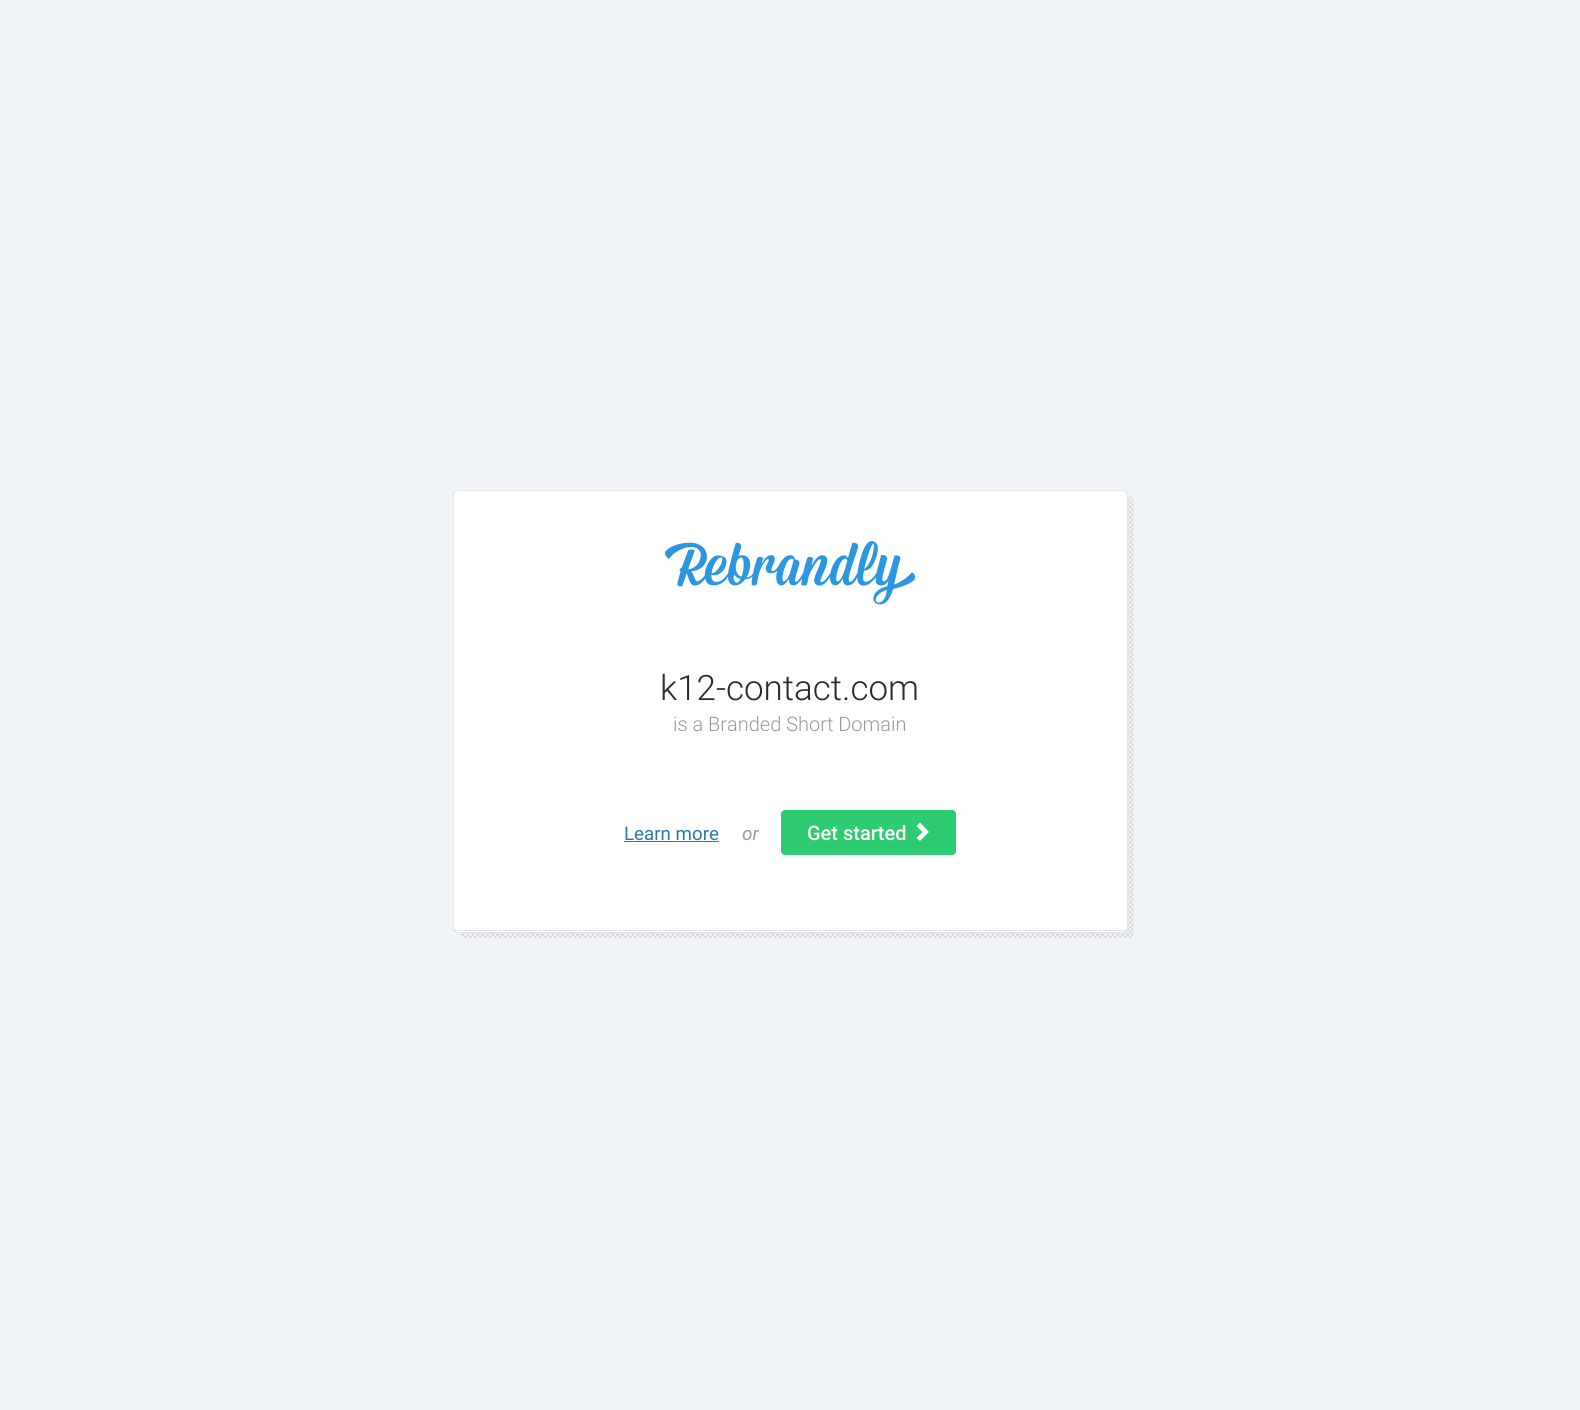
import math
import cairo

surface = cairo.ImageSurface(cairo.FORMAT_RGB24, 1580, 1410)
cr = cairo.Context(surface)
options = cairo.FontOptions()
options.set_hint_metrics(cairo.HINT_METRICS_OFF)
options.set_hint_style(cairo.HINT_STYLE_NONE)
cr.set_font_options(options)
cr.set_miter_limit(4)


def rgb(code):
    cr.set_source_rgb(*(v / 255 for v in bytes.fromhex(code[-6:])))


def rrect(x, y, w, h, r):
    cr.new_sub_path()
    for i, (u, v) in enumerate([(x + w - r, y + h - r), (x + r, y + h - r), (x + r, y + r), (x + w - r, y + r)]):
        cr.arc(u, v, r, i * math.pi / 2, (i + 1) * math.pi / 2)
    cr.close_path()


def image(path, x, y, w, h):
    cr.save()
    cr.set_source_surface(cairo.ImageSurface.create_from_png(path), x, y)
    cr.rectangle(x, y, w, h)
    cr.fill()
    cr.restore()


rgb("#f0f3f7")
cr.paint()
image("img/1.png", 459, 496, 675, 442)
rgb("#ffffff")
rrect(453, 490, 675, 443, 6)
cr.fill()
rrect(453.5, 490.5, 674, 442, 5.5)
cr.set_source_rgba(0, 0, 0, 0.1)
cr.set_line_width(1)
cr.stroke()
cr.rectangle(454, 930, 672, 1)
cr.fill()
image("img/2.png", 665, 541, 250, 64)
rgb("#2a7aaf")
cr.rectangle(624, 841, 95, 1)
cr.fill()
rgb("#2ecc71")
rrect(781, 810, 175, 45, 4)
cr.fill()
rgb("#ffffff")
cr.new_path()
cr.move_to(929, 832)
cr.line_to(920, 841)
cr.line_to(916.5, 838)
cr.line_to(922.5, 832)
cr.line_to(916.5, 826)
cr.line_to(920, 822.5)
cr.close_path()
cr.fill()
cr.select_font_face("Roboto Light")
cr.set_font_size(35)
rgb("#242b31")
cr.move_to(660, 700)
cr.show_text("k12-contact.com")
cr.set_font_size(20)
rgb("#999999")
cr.move_to(673, 731)
cr.show_text("is a Branded Short Domain")
cr.select_font_face("Roboto")
cr.set_font_size(18.75)
rgb("#2a7aaf")
cr.move_to(624, 840)
cr.show_text("Learn more")
cr.select_font_face("Roboto", cairo.FONT_SLANT_ITALIC)
rgb("#999999")
cr.move_to(742, 840)
cr.show_text("or")
cr.select_font_face("Roboto Medium")
cr.set_font_size(20)
rgb("#ffffff")
cr.move_to(807, 840)
cr.show_text("Get started")
surface.write_to_png("page.png")
